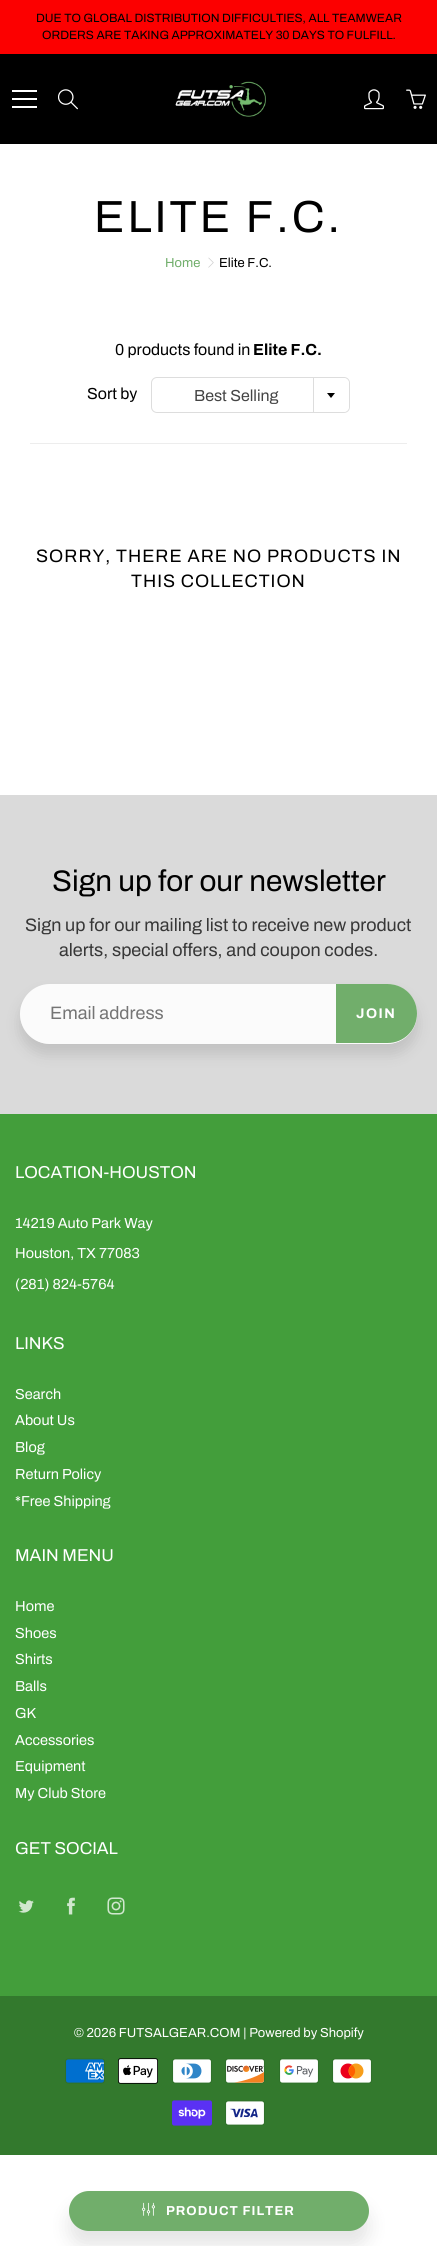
import math
import cairo

surface = cairo.ImageSurface(cairo.FORMAT_RGB24, 437, 2246)
cr = cairo.Context(surface)
options = cairo.FontOptions()
options.set_hint_metrics(cairo.HINT_METRICS_OFF)
options.set_hint_style(cairo.HINT_STYLE_NONE)
cr.set_font_options(options)
cr.set_miter_limit(4)


def rgb(code):
    cr.set_source_rgb(*(v / 255 for v in bytes.fromhex(code[-6:])))


def tracked(x, y, s, letter, word):
    cr.move_to(x, y)
    for ch in s:
        cr.show_text(ch)
        cr.rel_move_to(letter + word * (ch == ' '), 0)


def rrect(x, y, w, h, r):
    cr.new_sub_path()
    for i, (u, v) in enumerate([(x + w - r, y + h - r), (x + r, y + h - r), (x + r, y + r), (x + w - r, y + r)]):
        cr.arc(u, v, r, i * math.pi / 2, (i + 1) * math.pi / 2)
    cr.close_path()


def soft_shadow(x, y, w, h, r, blur, alpha):
    cr.push_group_with_content(cairo.CONTENT_ALPHA)
    cr.set_operator(cairo.OPERATOR_SOURCE)
    for i in range(15, -16, -2):
        e = blur * i / 6
        if min(w, h) + 2 * e > 0:
            cr.set_source_rgba(0, 0, 0, alpha * math.erfc((i - 1) / 8.5) / 2)
            rrect(x - e, y - e, w + 2 * e, h + 2 * e, max(0, min(r + e + blur * .6, min(w, h) / 2 + e)))
            cr.fill()
    cr.mask(cr.pop_group())


def image(path, x, y, w, h):
    cr.save()
    cr.set_source_surface(cairo.ImageSurface.create_from_png(path), x, y)
    cr.rectangle(x, y, w, h)
    cr.fill()
    cr.restore()


rgb("#ffffff")
cr.paint()
for x, y, w, h, color in [
    (0, 0, 437, 54, "#fc0000"),
    (0, 54, 437, 90, "#000000"),
    (12, 98, 25, 2, "#ffffff"),
    (12, 90, 25, 2, "#ffffff"),
    (12, 106, 25, 2, "#ffffff"),
]:
    rgb(color)
    cr.rectangle(x, y, w, h)
    cr.fill()
image("img/1.png", 58, 89, 20, 21)
image("img/2.png", 175, 81, 91, 36)
image("img/3.png", 364, 89, 20, 21)
image("img/4.png", 406, 89, 20, 20)
image("img/5.png", 208, 257, 6, 11)
rgb("#ededed")
cr.rectangle(30, 443, 377, 1)
cr.fill()
rrect(151.5, 377.5, 198, 35, 5.5)
rgb("#dddddd")
cr.set_line_width(1)
cr.stroke()
rgb("#ffffff")
cr.new_path()
cr.move_to(313, 378)
cr.line_to(343, 378)
cr.curve_to(346.5, 378, 349, 380.5, 349, 384)
cr.line_to(349, 406)
cr.curve_to(349, 409.5, 346.5, 412, 343, 412)
cr.line_to(313, 412)
cr.close_path()
cr.fill()
rgb("#dddddd")
cr.rectangle(313, 378, 1, 34)
cr.fill()
rgb("#000000")
cr.new_path()
cr.move_to(327, 393)
cr.line_to(335, 393)
cr.line_to(331, 398)
cr.close_path()
cr.fill()
rgb("#000000")
soft_shadow(69, 2206, 300, 40, 20, 9, 0.1)
rgb("#71ae6b")
rrect(69, 2191, 300, 40, 20)
cr.fill()
image("img/6.png", 142, 2202, 13, 14)
rgb("#dadada")
cr.rectangle(0, 795, 437, 319)
cr.fill()
cr.save()
cr.set_fill_rule(cairo.FILL_RULE_EVEN_ODD)
cr.new_path()
cr.move_to(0, 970)
cr.line_to(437, 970)
cr.line_to(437, 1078)
cr.line_to(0, 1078)
cr.close_path()
cr.move_to(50, 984)
cr.line_to(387, 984)
cr.curve_to(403.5, 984, 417, 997.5, 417, 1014)
cr.curve_to(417, 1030.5, 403.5, 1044, 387, 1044)
cr.line_to(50, 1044)
cr.curve_to(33.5, 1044, 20, 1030.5, 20, 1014)
cr.curve_to(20, 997.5, 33.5, 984, 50, 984)
cr.close_path()
cr.clip()
rgb("#000000")
soft_shadow(20, 994, 397, 60, 30, 7.5, 0.12)
cr.restore()
cr.set_source_rgba(1, 1, 1, 0.9)
rrect(20, 984, 397, 60, 30)
cr.fill()
rgb("#71ae6b")
cr.new_path()
cr.move_to(336, 984)
cr.line_to(387.5, 984)
cr.curve_to(404, 984, 417, 997, 417, 1013.5)
cr.curve_to(417, 1030, 404, 1043, 387.5, 1043)
cr.line_to(336, 1043)
cr.close_path()
cr.fill()
rgb("#439e3b")
cr.rectangle(0, 1114, 437, 882)
cr.fill()
image("img/7.png", 18, 1900, 16, 13)
image("img/8.png", 67, 1897, 8, 18)
image("img/9.png", 107, 1897, 18, 18)
rgb("#33792d")
cr.rectangle(0, 1996, 437, 159)
cr.fill()
image("img/10.png", 65, 2058, 40, 26)
image("img/11.png", 118, 2058, 40, 26)
image("img/12.png", 172, 2058, 40, 26)
image("img/13.png", 225, 2058, 40, 26)
image("img/14.png", 279, 2058, 40, 26)
image("img/15.png", 332, 2058, 40, 26)
image("img/16.png", 172, 2100, 40, 26)
image("img/17.png", 225, 2100, 40, 26)
cr.select_font_face("Archivo")
cr.set_font_size(12)
rgb("#000000")
cr.move_to(36, 22)
cr.show_text("DUE TO GLOBAL DISTRIBUTION DIFFICULTIES, ALL TEAMWEAR")
cr.move_to(42, 39)
cr.show_text("ORDERS ARE TAKING APPROXIMATELY 30 DAYS TO FULFILL.")
cr.set_font_size(45)
tracked(94, 232, "ELITE F.C.", 3, 0)
cr.set_font_size(13)
rgb("#71ae6b")
cr.move_to(165, 267)
cr.show_text("Home")
rgb("#000000")
cr.move_to(219, 267)
cr.show_text("Elite F.C.")
cr.set_font_size(16)
cr.move_to(115, 355)
cr.show_text("0 products found in")
cr.select_font_face("Archivo", cairo.FONT_SLANT_NORMAL, cairo.FONT_WEIGHT_BOLD)
cr.move_to(253, 355)
cr.show_text("Elite F.C.")
cr.select_font_face("Archivo")
cr.move_to(87, 399)
cr.show_text("Sort by")
rgb("#444444")
cr.move_to(194, 401)
cr.show_text("Best Selling")
cr.set_font_size(18)
rgb("#000000")
tracked(36, 562, "SORRY, THERE ARE NO PRODUCTS IN", 1, 0)
tracked(131, 587, "THIS COLLECTION", 1, 0)
cr.select_font_face("Archivo", cairo.FONT_SLANT_NORMAL, cairo.FONT_WEIGHT_BOLD)
cr.set_font_size(13)
rgb("#ffffff")
tracked(166, 2215, "PRODUCT FILTER", 1, 0)
cr.select_font_face("Archivo")
cr.set_font_size(29.75)
rgb("#000000")
cr.move_to(52, 891)
cr.show_text("Sign up for our newsletter")
cr.set_font_size(18)
rgb("#373737")
cr.move_to(25, 931)
cr.show_text("Sign up for our mailing list to receive new product")
cr.move_to(59, 956)
cr.show_text("alerts, special offers, and coupon codes.")
rgb("#757575")
cr.move_to(50, 1019)
cr.show_text("Email address")
cr.select_font_face("Archivo", cairo.FONT_SLANT_NORMAL, cairo.FONT_WEIGHT_BOLD)
cr.set_font_size(14)
rgb("#ffffff")
tracked(356, 1018, "JOIN", 1.5, 0)
cr.select_font_face("Archivo")
cr.set_font_size(17.25)
cr.move_to(15, 1178)
cr.show_text("LOCATION-HOUSTON")
cr.set_font_size(14.5)
for x, y, s in [
    (15, 1228, "14219 Auto Park Way"),
    (15, 1258, "Houston, TX 77083"),
    (15, 1289, "(281) 824-5764"),
]:
    cr.move_to(x, y)
    cr.show_text(s)
cr.set_font_size(17.25)
cr.move_to(15, 1349)
cr.show_text("LINKS")
cr.set_font_size(14.5)
for x, y, s in [
    (15, 1399, "Search"),
    (15, 1425, "About Us"),
    (15, 1452, "Blog"),
    (15, 1479, "Return Policy"),
    (15, 1506, "*Free Shipping"),
]:
    cr.move_to(x, y)
    cr.show_text(s)
cr.set_font_size(17.25)
cr.move_to(15, 1561)
cr.show_text("MAIN MENU")
cr.set_font_size(14.5)
for x, y, s in [
    (15, 1611, "Home"),
    (15, 1638, "Shoes"),
    (15, 1664, "Shirts"),
    (15, 1691, "Balls"),
    (15, 1718, "GK"),
    (15, 1745, "Accessories"),
    (15, 1771, "Equipment"),
    (15, 1798, "My Club Store"),
]:
    cr.move_to(x, y)
    cr.show_text(s)
cr.set_font_size(17.25)
cr.move_to(15, 1854)
cr.show_text("GET SOCIAL")
cr.set_font_size(13)
cr.move_to(74, 2037)
cr.show_text("© 2026 FUTSALGEAR.COM | Powered by Shopify")
surface.write_to_png("page.png")
